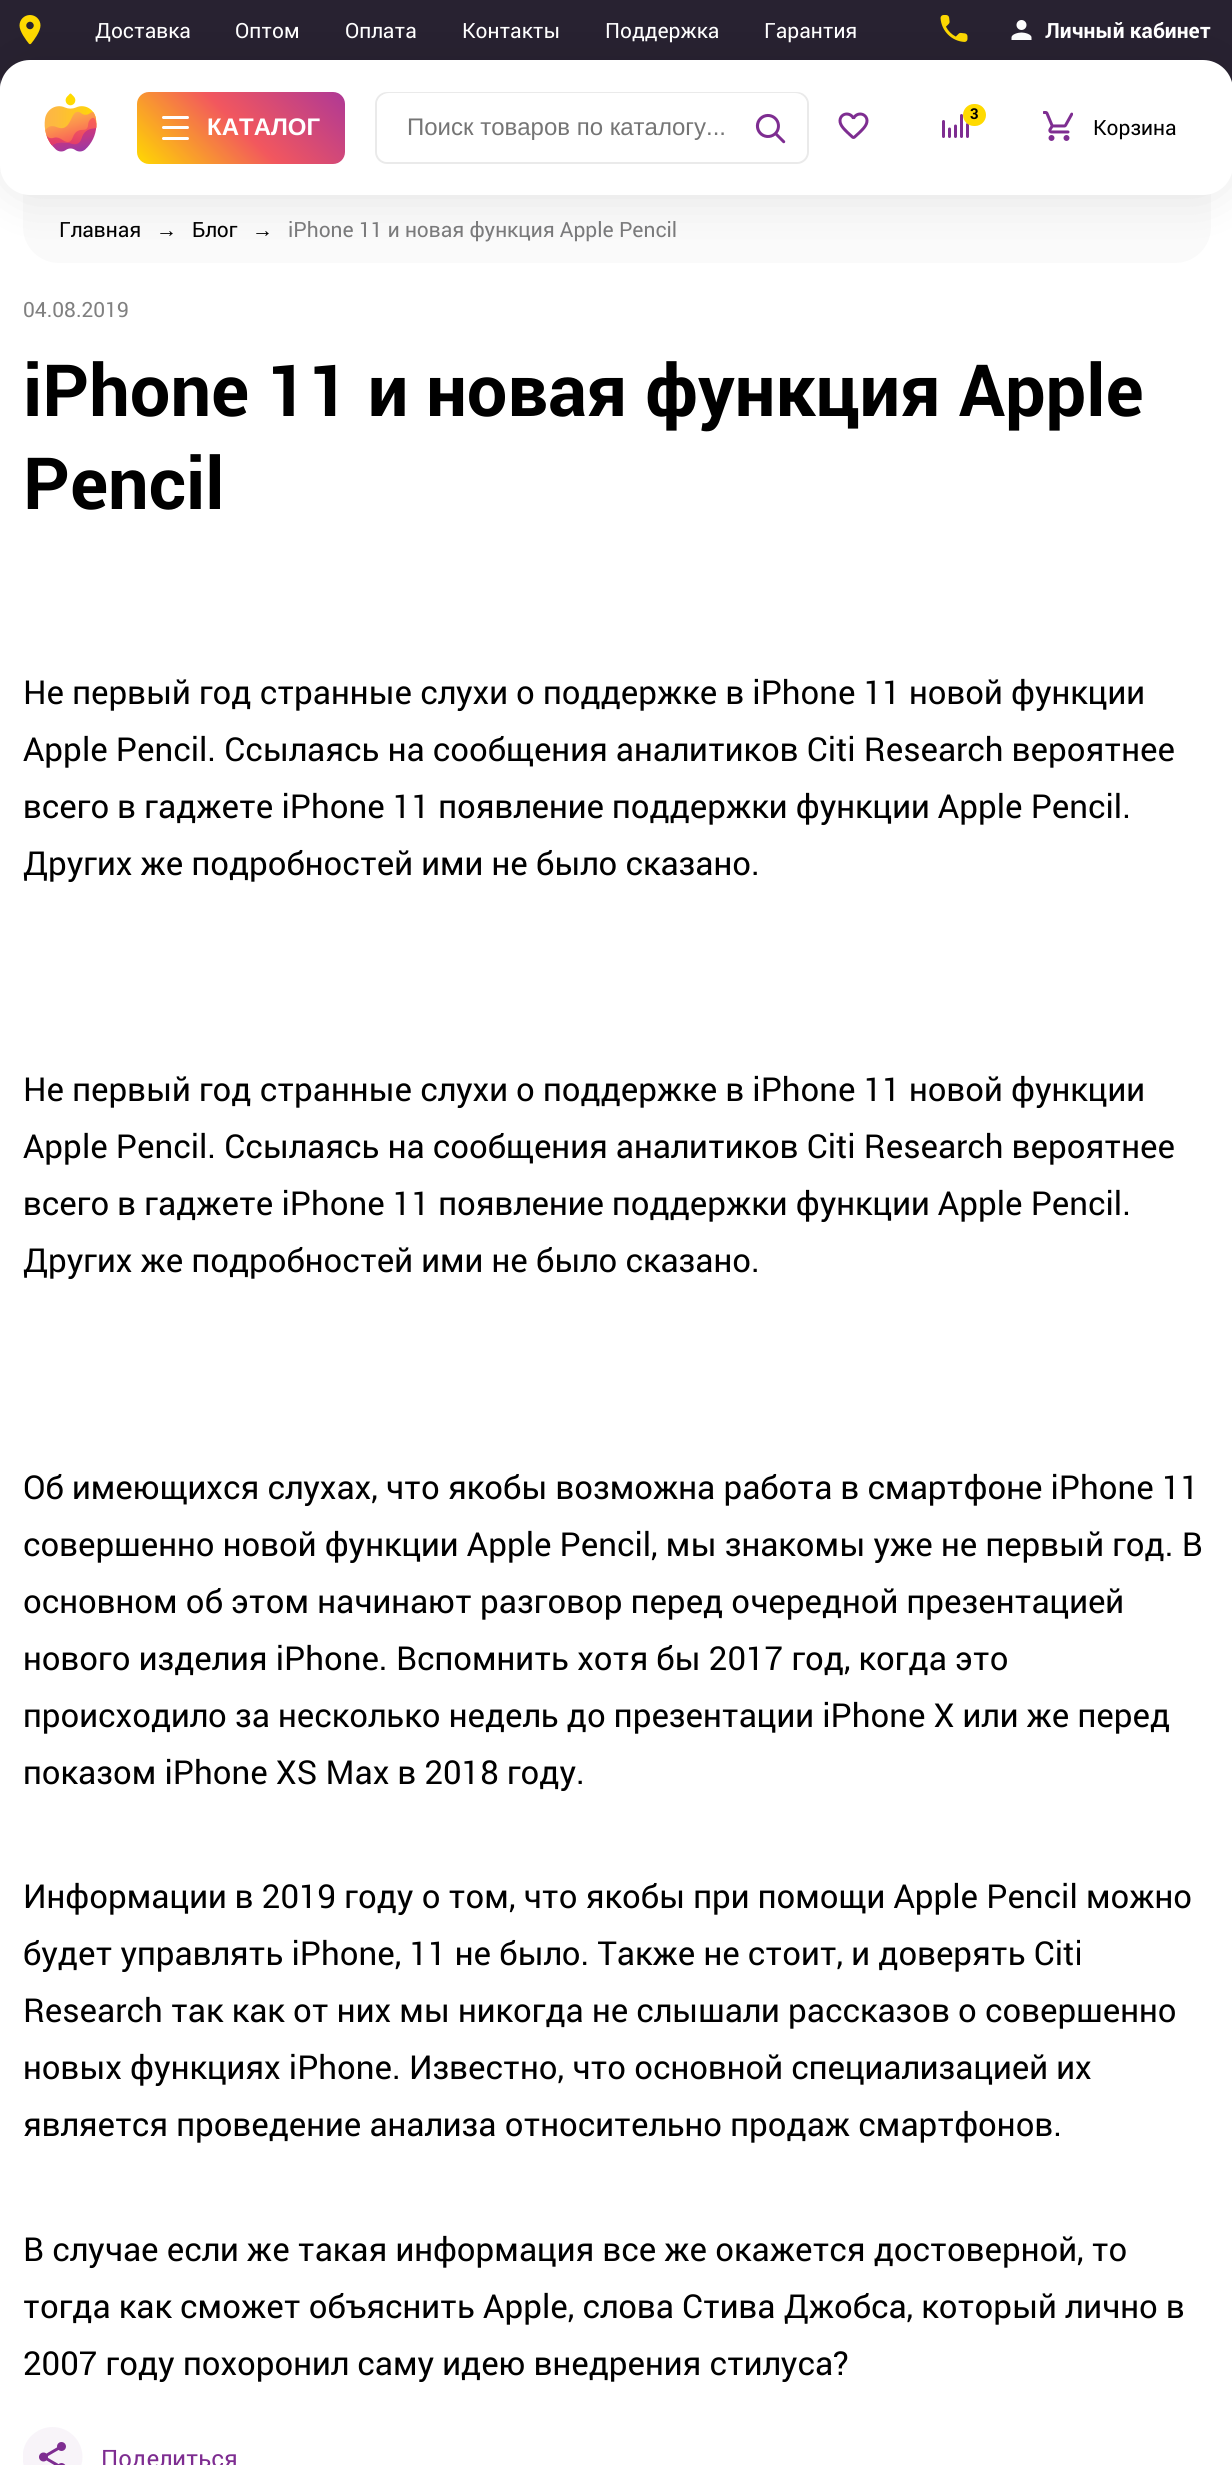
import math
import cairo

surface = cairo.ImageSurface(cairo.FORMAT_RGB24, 1232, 2465)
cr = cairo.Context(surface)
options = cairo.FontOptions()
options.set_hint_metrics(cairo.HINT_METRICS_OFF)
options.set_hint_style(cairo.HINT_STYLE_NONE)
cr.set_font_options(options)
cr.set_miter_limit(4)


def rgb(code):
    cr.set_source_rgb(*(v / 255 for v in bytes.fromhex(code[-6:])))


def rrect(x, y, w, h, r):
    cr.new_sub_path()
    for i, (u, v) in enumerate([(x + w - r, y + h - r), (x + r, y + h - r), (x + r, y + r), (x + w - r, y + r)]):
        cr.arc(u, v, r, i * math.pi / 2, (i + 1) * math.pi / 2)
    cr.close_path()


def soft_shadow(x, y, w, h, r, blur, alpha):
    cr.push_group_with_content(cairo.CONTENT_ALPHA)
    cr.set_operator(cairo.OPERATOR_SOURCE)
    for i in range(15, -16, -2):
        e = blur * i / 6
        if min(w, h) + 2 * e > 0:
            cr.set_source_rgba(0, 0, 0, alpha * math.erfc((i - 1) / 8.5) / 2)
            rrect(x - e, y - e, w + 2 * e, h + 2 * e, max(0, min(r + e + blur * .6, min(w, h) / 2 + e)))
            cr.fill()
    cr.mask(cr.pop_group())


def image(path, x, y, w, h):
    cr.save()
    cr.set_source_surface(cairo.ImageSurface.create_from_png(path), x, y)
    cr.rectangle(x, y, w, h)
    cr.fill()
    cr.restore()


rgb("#ffffff")
cr.paint()
rgb("#282231")
cr.new_path()
cr.move_to(0, 0)
cr.line_to(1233, 0)
cr.line_to(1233, 78)
cr.curve_to(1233, 104.5, 1211.5, 126, 1185, 126)
cr.line_to(48, 126)
cr.curve_to(21.5, 126, 0, 104.5, 0, 78)
cr.close_path()
cr.fill()
image("img/1.png", 19, 15, 22, 30)
image("img/2.png", 940, 15, 28, 27)
image("img/3.png", 1011, 20, 21, 20)
rgb("#fafafa")
rrect(23, 126, 1188, 137, 36)
cr.fill()
rgb("#000000")
soft_shadow(0, 60, 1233, 135, 30, 24, 0.1)
rgb("#ffffff")
rrect(0, 60, 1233, 135, 30)
cr.fill()
image("img/4.png", 44, 93, 53, 59)
gradient = cairo.LinearGradient(171, 198, 311, 57)
gradient.add_color_stop_rgba(0, 1, 0.855, 0, 1)
gradient.add_color_stop_rgba(0.5, 0.949, 0.341, 0.369, 1)
gradient.add_color_stop_rgba(1, 0.682, 0.22, 0.588, 1)
cr.set_source(gradient)
rrect(137, 92, 208, 72, 12)
cr.fill()
rgb("#ffffff")
rrect(162, 116, 27, 3, 1.5)
cr.fill()
rrect(162, 126, 27, 3, 1.5)
cr.fill()
rrect(162, 137, 27, 3, 1.5)
cr.fill()
rrect(376, 93, 432, 70, 11)
rgb("#eaeaea")
cr.stroke()
rgb("#ffffff")
rrect(377, 93, 430, 69, 12)
cr.fill()
image("img/5.png", 755, 113, 31, 31)
image("img/6.png", 838, 112, 31, 27)
image("img/7.png", 942, 114, 27, 24)
rgb("#ffda00")
rrect(963, 104, 23, 22, 11)
cr.fill()
image("img/8.png", 1043, 111, 30, 30)
image("img/9.png", 23, 2427, 60, 38)
cr.select_font_face("Roboto")
cr.set_font_size(21)
rgb("#ffffff")
for x, y, s in [
    (95, 38, "Доставка"),
    (235, 38, "Оптом"),
    (345, 38, "Оплата"),
    (462, 38, "Контакты"),
    (605, 38, "Поддержка"),
    (764, 38, "Гарантия"),
]:
    cr.move_to(x, y)
    cr.show_text(s)
cr.select_font_face("Roboto", cairo.FONT_SLANT_NORMAL, cairo.FONT_WEIGHT_BOLD)
cr.move_to(1045, 38)
cr.show_text("Личный кабинет")
cr.select_font_face("Liberation Sans", cairo.FONT_SLANT_NORMAL, cairo.FONT_WEIGHT_BOLD)
cr.set_font_size(24)
cr.move_to(207, 135)
cr.show_text("КАТАЛОГ")
cr.select_font_face("Liberation Sans")
rgb("#757575")
cr.move_to(407, 135)
cr.show_text("Поиск товаров по каталогу...")
cr.select_font_face("Roboto", cairo.FONT_SLANT_NORMAL, cairo.FONT_WEIGHT_BOLD)
cr.set_font_size(15)
rgb("#000000")
cr.move_to(970, 119)
cr.show_text("3")
cr.select_font_face("Roboto")
cr.set_font_size(21)
cr.move_to(1093, 135)
cr.show_text("Корзина")
cr.move_to(59, 237)
cr.show_text("Главная")
cr.select_font_face("Liberation Sans")
cr.move_to(156, 237)
cr.show_text("→")
cr.select_font_face("Roboto")
cr.move_to(192, 237)
cr.show_text("Блог")
cr.select_font_face("Liberation Sans")
cr.move_to(252, 237)
cr.show_text("→")
cr.select_font_face("Roboto")
rgb("#7a7a7b")
cr.move_to(288, 237)
cr.show_text("iPhone 11 и новая функция Apple Pencil")
rgb("#808080")
cr.move_to(23, 317)
cr.show_text("04.08.2019")
cr.select_font_face("Roboto", cairo.FONT_SLANT_NORMAL, cairo.FONT_WEIGHT_BOLD)
cr.set_font_size(72)
rgb("#000000")
cr.move_to(23, 416)
cr.show_text("iPhone 11 и новая функция Apple")
cr.move_to(23, 509)
cr.show_text("Pencil")
cr.select_font_face("Roboto")
cr.set_font_size(33)
for x, y, s in [
    (23, 704, "Не первый год странные слухи о поддержке в iPhone 11 новой функции"),
    (23, 761, "Apple Pencil. Ссылаясь на сообщения аналитиков Citi Research вероятнее"),
    (23, 818, "всего в гаджете iPhone 11 появление поддержки функции Apple Pencil."),
    (23, 875, "Других же подробностей ими не было сказано."),
    (23, 1101, "Не первый год странные слухи о поддержке в iPhone 11 новой функции"),
    (23, 1158, "Apple Pencil. Ссылаясь на сообщения аналитиков Citi Research вероятнее"),
    (23, 1215, "всего в гаджете iPhone 11 появление поддержки функции Apple Pencil."),
    (23, 1272, "Других же подробностей ими не было сказано."),
    (23, 1499, "Об имеющихся слухах, что якобы возможна работа в смартфоне iPhone 11"),
    (23, 1556, "совершенно новой функции Apple Pencil, мы знакомы уже не первый год. В"),
    (23, 1613, "основном об этом начинают разговор перед очередной презентацией"),
    (23, 1670, "нового изделия iPhone. Вспомнить хотя бы 2017 год, когда это"),
    (23, 1727, "происходило за несколько недель до презентации iPhone X или же перед"),
    (23, 1784, "показом iPhone XS Max в 2018 году."),
    (23, 1908, "Информации в 2019 году о том, что якобы при помощи Apple Pencil можно"),
    (23, 1965, "будет управлять iPhone, 11 не было. Также не стоит, и доверять Citi"),
    (23, 2022, "Research так как от них мы никогда не слышали рассказов о совершенно"),
    (23, 2079, "новых функциях iPhone. Известно, что основной специализацией их"),
    (23, 2136, "является проведение анализа относительно продаж смартфонов."),
    (23, 2261, "В случае если же такая информация все же окажется достоверной, то"),
    (23, 2318, "тогда как сможет объяснить Apple, слова Стива Джобса, который лично в"),
    (23, 2375, "2007 году похоронил саму идею внедрения стилуса?"),
]:
    cr.move_to(x, y)
    cr.show_text(s)
cr.set_font_size(24)
rgb("#7e2d91")
cr.move_to(101, 2467)
cr.show_text("Поделиться")
surface.write_to_png("page.png")
